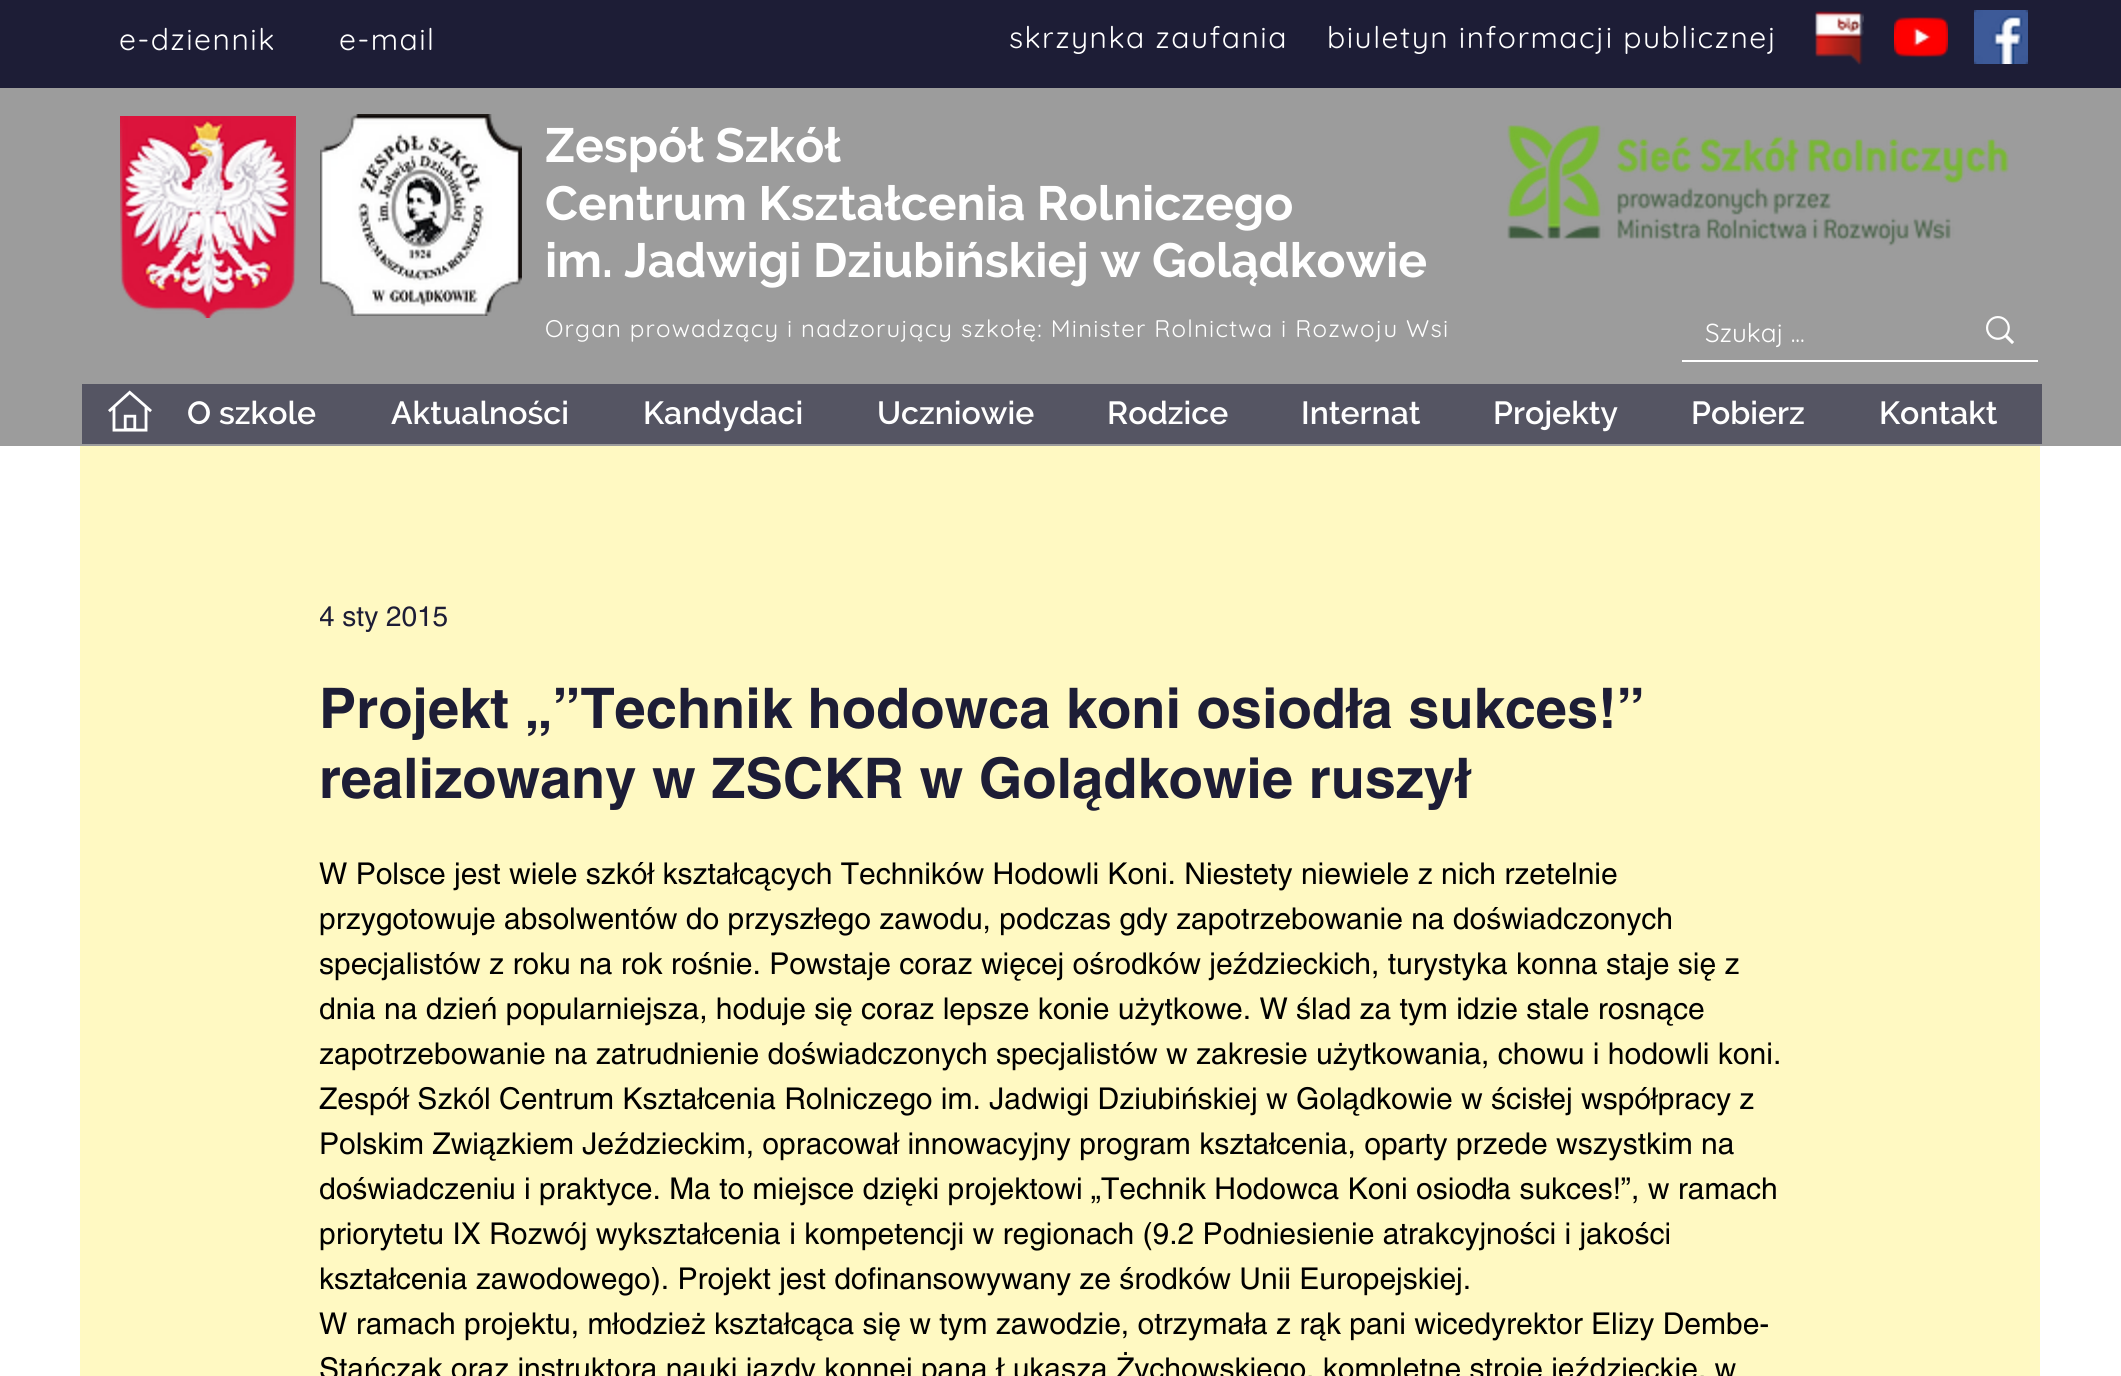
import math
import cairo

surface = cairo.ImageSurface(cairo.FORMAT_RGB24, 2121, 1376)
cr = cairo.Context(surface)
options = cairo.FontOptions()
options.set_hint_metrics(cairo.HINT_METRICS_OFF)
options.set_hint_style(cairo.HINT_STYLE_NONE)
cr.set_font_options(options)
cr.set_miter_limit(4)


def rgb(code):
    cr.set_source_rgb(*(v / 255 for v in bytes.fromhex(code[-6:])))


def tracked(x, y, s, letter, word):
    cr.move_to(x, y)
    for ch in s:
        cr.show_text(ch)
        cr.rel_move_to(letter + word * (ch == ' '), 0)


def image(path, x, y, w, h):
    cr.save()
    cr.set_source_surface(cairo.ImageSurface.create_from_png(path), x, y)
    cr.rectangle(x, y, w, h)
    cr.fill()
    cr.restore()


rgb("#ffffff")
cr.paint()
rgb("#1d1d36")
cr.rectangle(0, 0, 2121, 88)
cr.fill()
image("img/1.png", 1815, 11, 49, 54)
image("img/2.png", 1894, 17, 54, 41)
image("img/3.png", 1974, 10, 54, 54)
rgb("#9c9c9c")
cr.rectangle(0, 88, 2121, 358)
cr.fill()
image("img/4.png", 320, 114, 202, 202)
image("img/5.png", 120, 116, 176, 202)
image("img/6.png", 1507, 125, 502, 121)
rgb("#ffffff")
cr.rectangle(1682, 360, 356, 2)
cr.fill()
image("img/7.png", 1986, 316, 28, 28)
rgb("#555563")
cr.rectangle(82, 384, 1960, 60)
cr.fill()
image("img/8.png", 108, 390, 44, 42)
rgb("#fff9c2")
cr.rectangle(80, 446, 1960, 930)
cr.fill()
cr.select_font_face("Quicksand")
cr.set_font_size(30)
rgb("#ffffff")
for x, y, s in [
    (119, 50, "e-dziennik"),
    (1009, 48, "skrzynka zaufania"),
    (1327, 48, "biuletyn informacji publicznej"),
    (339, 50, "e-mail"),
]:
    tracked(x, y, s, 1.5, 0)
cr.select_font_face("Raleway", cairo.FONT_SLANT_NORMAL, cairo.FONT_WEIGHT_BOLD)
cr.set_font_size(48)
for x, y, s in [
    (545, 162, "Zespół Szkół"),
    (545, 220, "Centrum Kształcenia Rolniczego"),
    (545, 277, "im. Jadwigi Dziubińskiej w Golądkowie"),
]:
    cr.move_to(x, y)
    cr.show_text(s)
cr.select_font_face("Quicksand")
cr.set_font_size(24)
tracked(545, 337, "Organ prowadzący i nadzorujący szkołę: Minister Rolnictwa i Rozwoju Wsi", 1.2, 0)
cr.set_font_size(26)
cr.move_to(1705, 342)
cr.show_text("Szukaj ...")
cr.select_font_face("Raleway SemiBold")
cr.set_font_size(32)
for x, y, s in [
    (187, 424, "O szkole"),
    (391, 424, "Aktualności"),
    (643, 424, "Kandydaci"),
    (877, 424, "Uczniowie"),
    (1107, 424, "Rodzice"),
    (1301, 424, "Internat"),
    (1493, 424, "Projekty"),
    (1691, 424, "Pobierz"),
    (1879, 424, "Kontakt"),
]:
    cr.move_to(x, y)
    cr.show_text(s)
cr.save()
cr.rectangle(320, 596, 128, 42)
cr.clip()
cr.select_font_face("helvetica")
cr.set_font_size(28)
rgb("#1d1d36")
cr.move_to(319, 626)
cr.show_text("4 sty 2015")
cr.restore()
cr.select_font_face("helvetica", cairo.FONT_SLANT_NORMAL, cairo.FONT_WEIGHT_BOLD)
cr.set_font_size(56)
rgb("#1d1d36")
cr.move_to(319, 728)
cr.show_text("Projekt „”Technik hodowca koni osiodła sukces!”")
cr.move_to(319, 798)
cr.show_text("realizowany w ZSCKR w Golądkowie ruszył")
cr.select_font_face("helvetica")
cr.set_font_size(30)
rgb("#000000")
for x, y, s in [
    (319, 884, "W Polsce jest wiele szkół kształcących Techników Hodowli Koni. Niestety niewiele z nich rzetelnie"),
    (319, 929, "przygotowuje absolwentów do przyszłego zawodu, podczas gdy zapotrzebowanie na doświadczonych"),
    (319, 974, "specjalistów z roku na rok rośnie. Powstaje coraz więcej ośrodków jeździeckich, turystyka konna staje się z"),
    (319, 1019, "dnia na dzień popularniejsza, hoduje się coraz lepsze konie użytkowe. W ślad za tym idzie stale rosnące"),
    (319, 1064, "zapotrzebowanie na zatrudnienie doświadczonych specjalistów w zakresie użytkowania, chowu i hodowli koni."),
    (319, 1109, "Zespół Szkól Centrum Kształcenia Rolniczego im. Jadwigi Dziubińskiej w Golądkowie w ścisłej współpracy z"),
    (319, 1154, "Polskim Związkiem Jeździeckim, opracował innowacyjny program kształcenia, oparty przede wszystkim na"),
    (319, 1199, "doświadczeniu i praktyce. Ma to miejsce dzięki projektowi „Technik Hodowca Koni osiodła sukces!”, w ramach"),
    (319, 1244, "priorytetu IX Rozwój wykształcenia i kompetencji w regionach (9.2 Podniesienie atrakcyjności i jakości"),
    (319, 1289, "kształcenia zawodowego). Projekt jest dofinansowywany ze środków Unii Europejskiej."),
    (319, 1334, "W ramach projektu, młodzież kształcąca się w tym zawodzie, otrzymała z rąk pani wicedyrektor Elizy Dembe-"),
    (319, 1379, "Stańczak oraz instruktora nauki jazdy konnej pana Łukasza Żychowskiego, kompletne stroje jeździeckie, w"),
]:
    cr.move_to(x, y)
    cr.show_text(s)
surface.write_to_png("page.png")
